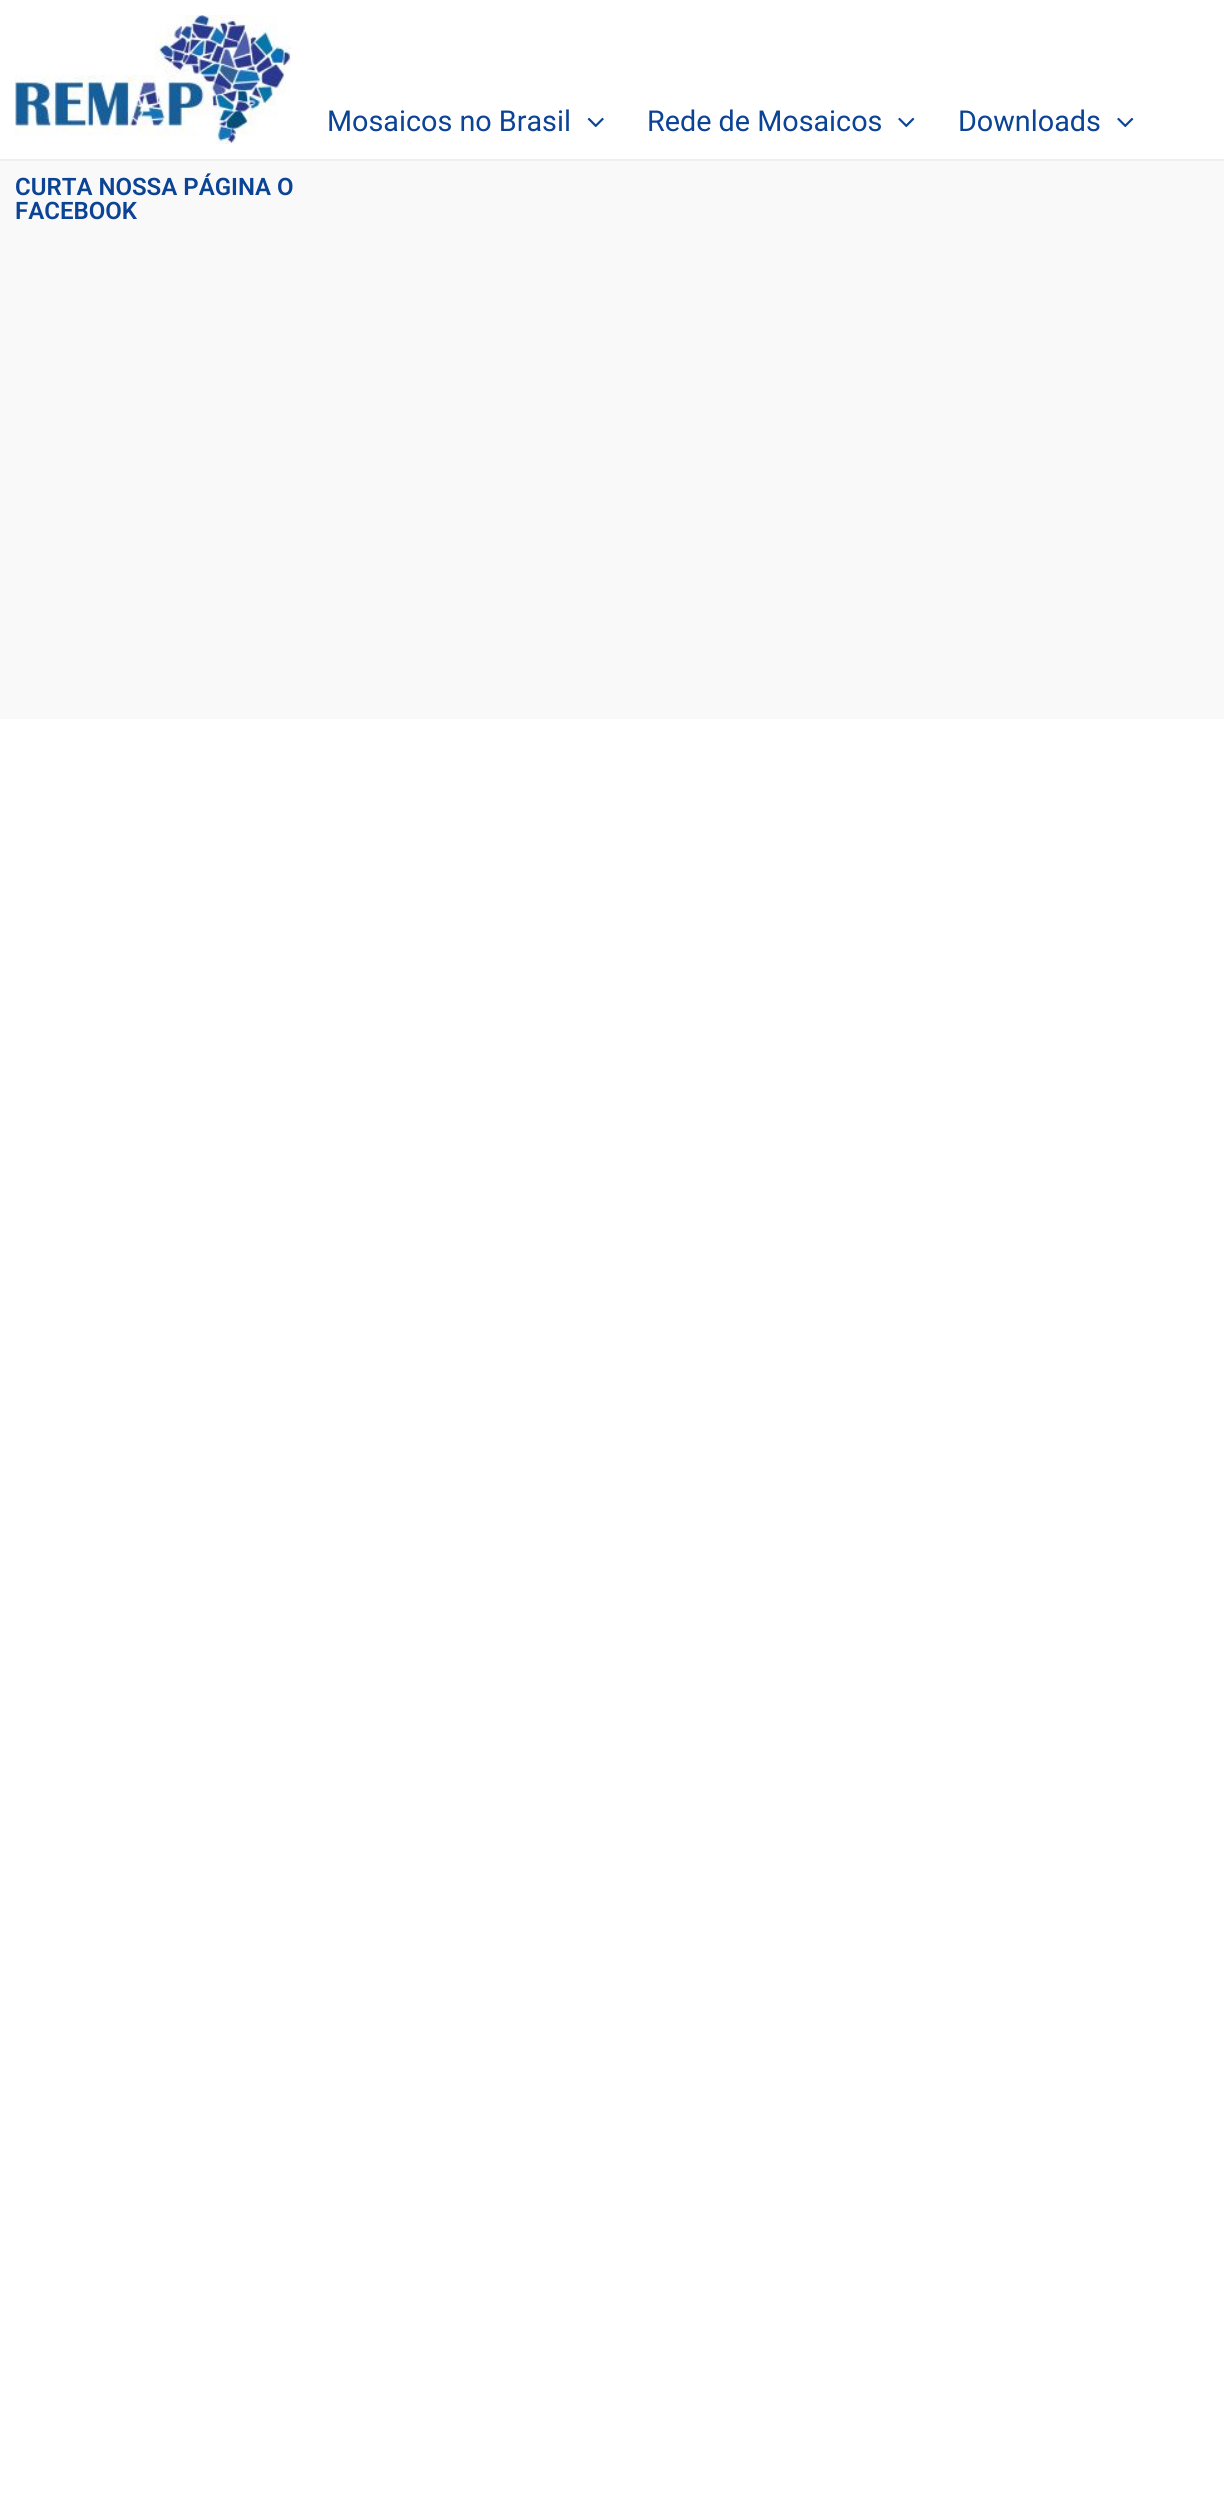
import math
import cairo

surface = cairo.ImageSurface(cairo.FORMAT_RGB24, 1224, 2509)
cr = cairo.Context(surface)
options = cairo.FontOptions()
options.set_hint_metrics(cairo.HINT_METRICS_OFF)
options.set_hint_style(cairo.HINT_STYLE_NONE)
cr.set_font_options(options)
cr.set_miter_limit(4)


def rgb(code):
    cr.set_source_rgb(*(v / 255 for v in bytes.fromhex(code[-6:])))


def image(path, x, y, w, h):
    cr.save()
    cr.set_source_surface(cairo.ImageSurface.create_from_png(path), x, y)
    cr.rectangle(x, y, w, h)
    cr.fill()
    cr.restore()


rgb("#ffffff")
cr.paint()
image("img/1.png", 15, 15, 276, 129)
image("img/2.png", 587, 117, 17, 11)
image("img/3.png", 898, 117, 17, 11)
image("img/3.png", 1117, 117, 17, 11)
rgb("#f9f9f9")
cr.rectangle(0, 161, 1224, 558)
cr.fill()
rgb("#efefef")
cr.rectangle(0, 159, 1224, 2)
cr.fill()
cr.select_font_face("Roboto")
cr.set_font_size(28.75)
rgb("#0b4395")
for x, y, s in [
    (327, 131, "Mosaicos no Brasil"),
    (647, 131, "Rede de Mosaicos"),
    (958, 131, "Downloads"),
]:
    cr.move_to(x, y)
    cr.show_text(s)
cr.select_font_face("Roboto SemiBold")
cr.set_font_size(24)
cr.move_to(15, 195)
cr.show_text("CURTA NOSSA PÁGINA O")
cr.move_to(15, 219)
cr.show_text("FACEBOOK")
surface.write_to_png("page.png")
